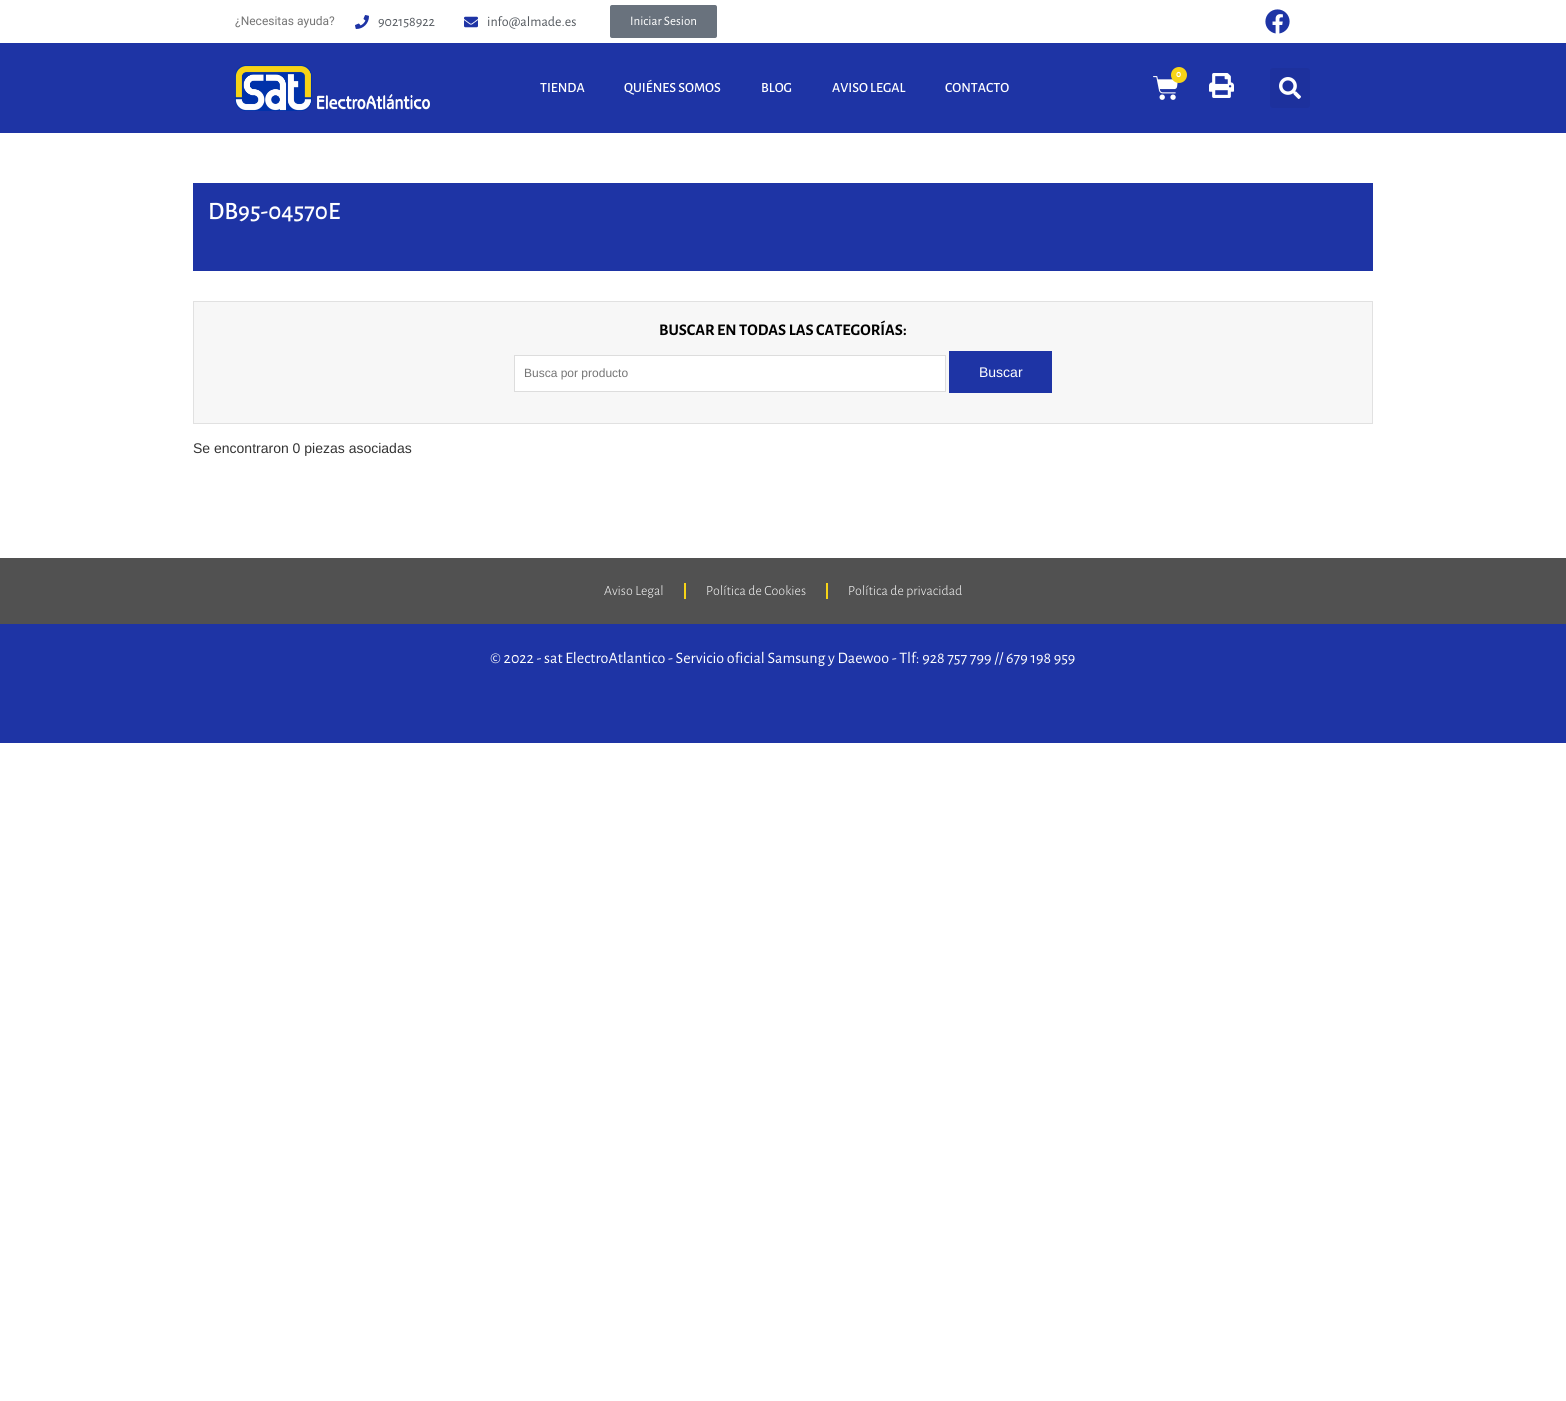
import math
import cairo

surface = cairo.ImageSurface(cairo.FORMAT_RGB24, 1566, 1401)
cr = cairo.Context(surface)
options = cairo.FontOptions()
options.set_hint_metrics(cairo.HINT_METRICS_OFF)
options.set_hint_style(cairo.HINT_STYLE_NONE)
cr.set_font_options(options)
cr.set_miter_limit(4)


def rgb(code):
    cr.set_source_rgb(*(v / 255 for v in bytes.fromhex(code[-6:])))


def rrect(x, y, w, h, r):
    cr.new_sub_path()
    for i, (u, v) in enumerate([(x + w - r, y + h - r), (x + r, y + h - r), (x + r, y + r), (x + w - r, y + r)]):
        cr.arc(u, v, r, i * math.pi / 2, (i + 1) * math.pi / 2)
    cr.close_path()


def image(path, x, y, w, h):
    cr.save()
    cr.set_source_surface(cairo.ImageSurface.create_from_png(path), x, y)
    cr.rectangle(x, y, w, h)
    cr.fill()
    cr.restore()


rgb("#ffffff")
cr.paint()
image("img/1.png", 355, 15, 14, 14)
image("img/2.png", 464, 16, 14, 12)
rgb("#69727d")
rrect(610, 5, 107, 33, 2)
cr.fill()
image("img/3.png", 1265, 9, 25, 25)
rgb("#1e34a5")
cr.rectangle(0, 43, 1566, 90)
cr.fill()
image("img/4.png", 235, 65, 195, 46)
image("img/5.png", 1153, 76, 25, 24)
rgb("#f7d417")
cr.arc(1179, 75, 8, 0, 2 * math.pi)
cr.fill()
image("img/6.png", 1209, 73, 25, 25)
rgb("#1d319d")
rrect(1270, 68, 40, 40, 3)
cr.fill()
image("img/7.png", 1279, 77, 22, 22)
rgb("#1e34a5")
cr.rectangle(193, 183, 1180, 88)
cr.fill()
rgb("#f7f7f7")
cr.rectangle(193.5, 301.5, 1179, 122)
cr.fill_preserve()
rgb("#e1e1e1")
cr.set_line_width(1)
cr.stroke()
rgb("#ffffff")
cr.rectangle(514.5, 355.5, 431, 36)
cr.fill_preserve()
rgb("#dddddd")
cr.stroke()
for x, y, w, h, color in [
    (949, 351, 103, 42, "#1e34a5"),
    (0, 558, 1566, 66, "#515151"),
    (684, 583, 2, 16, "#f7d417"),
    (826, 583, 2, 16, "#f7d417"),
    (0, 624, 1566, 119, "#1e34a5"),
]:
    rgb(color)
    cr.rectangle(x, y, w, h)
    cr.fill()
cr.select_font_face("Roboto")
cr.set_font_size(12)
rgb("#757575")
cr.move_to(235, 25)
cr.show_text("¿Necesitas ayuda?")
cr.select_font_face("Alegreya Sans")
cr.set_font_size(14)
rgb("#54595f")
cr.move_to(378, 26)
cr.show_text("902158922")
cr.move_to(487, 26)
cr.show_text("info@almade.es")
cr.set_font_size(13)
rgb("#ffffff")
cr.move_to(630, 25)
cr.show_text("Iniciar Sesion")
cr.select_font_face("Alegreya Sans", cairo.FONT_SLANT_NORMAL, cairo.FONT_WEIGHT_BOLD)
cr.set_font_size(10)
cr.move_to(1176, 77)
cr.show_text("0")
cr.select_font_face("Alegreya Sans Medium")
cr.set_font_size(14)
for x, y, s in [
    (540, 92, "TIENDA"),
    (624, 92, "QUIÉNES SOMOS"),
    (761, 92, "BLOG"),
    (832, 92, "AVISO LEGAL"),
    (945, 92, "CONTACTO"),
]:
    cr.move_to(x, y)
    cr.show_text(s)
cr.set_font_size(25)
cr.move_to(208, 219)
cr.show_text("DB95-04570E")
cr.select_font_face("Alegreya Sans", cairo.FONT_SLANT_NORMAL, cairo.FONT_WEIGHT_BOLD)
cr.set_font_size(16.25)
rgb("#000000")
cr.move_to(659, 335)
cr.show_text("BUSCAR EN TODAS LAS CATEGORÍAS:")
cr.select_font_face("Liberation Sans")
cr.set_font_size(12)
rgb("#757575")
cr.move_to(524, 377)
cr.show_text("Busca por producto")
cr.set_font_size(14)
rgb("#ffffff")
cr.move_to(979, 377)
cr.show_text("Buscar")
rgb("#333333")
cr.move_to(193, 453)
cr.show_text("Se encontraron 0 piezas asociadas")
cr.select_font_face("Alegreya Sans Light")
rgb("#ffffff")
for x, y, s in [
    (604, 595, "Aviso Legal"),
    (706, 595, "Política de Cookies"),
    (848, 595, "Política de privacidad"),
]:
    cr.move_to(x, y)
    cr.show_text(s)
cr.select_font_face("Alegreya Sans")
cr.set_font_size(16)
cr.move_to(490, 663)
cr.show_text("© 2022 - sat ElectroAtlantico - Servicio oficial Samsung y Daewoo - Tlf: 928 757 799 // 679 198 959")
surface.write_to_png("page.png")
